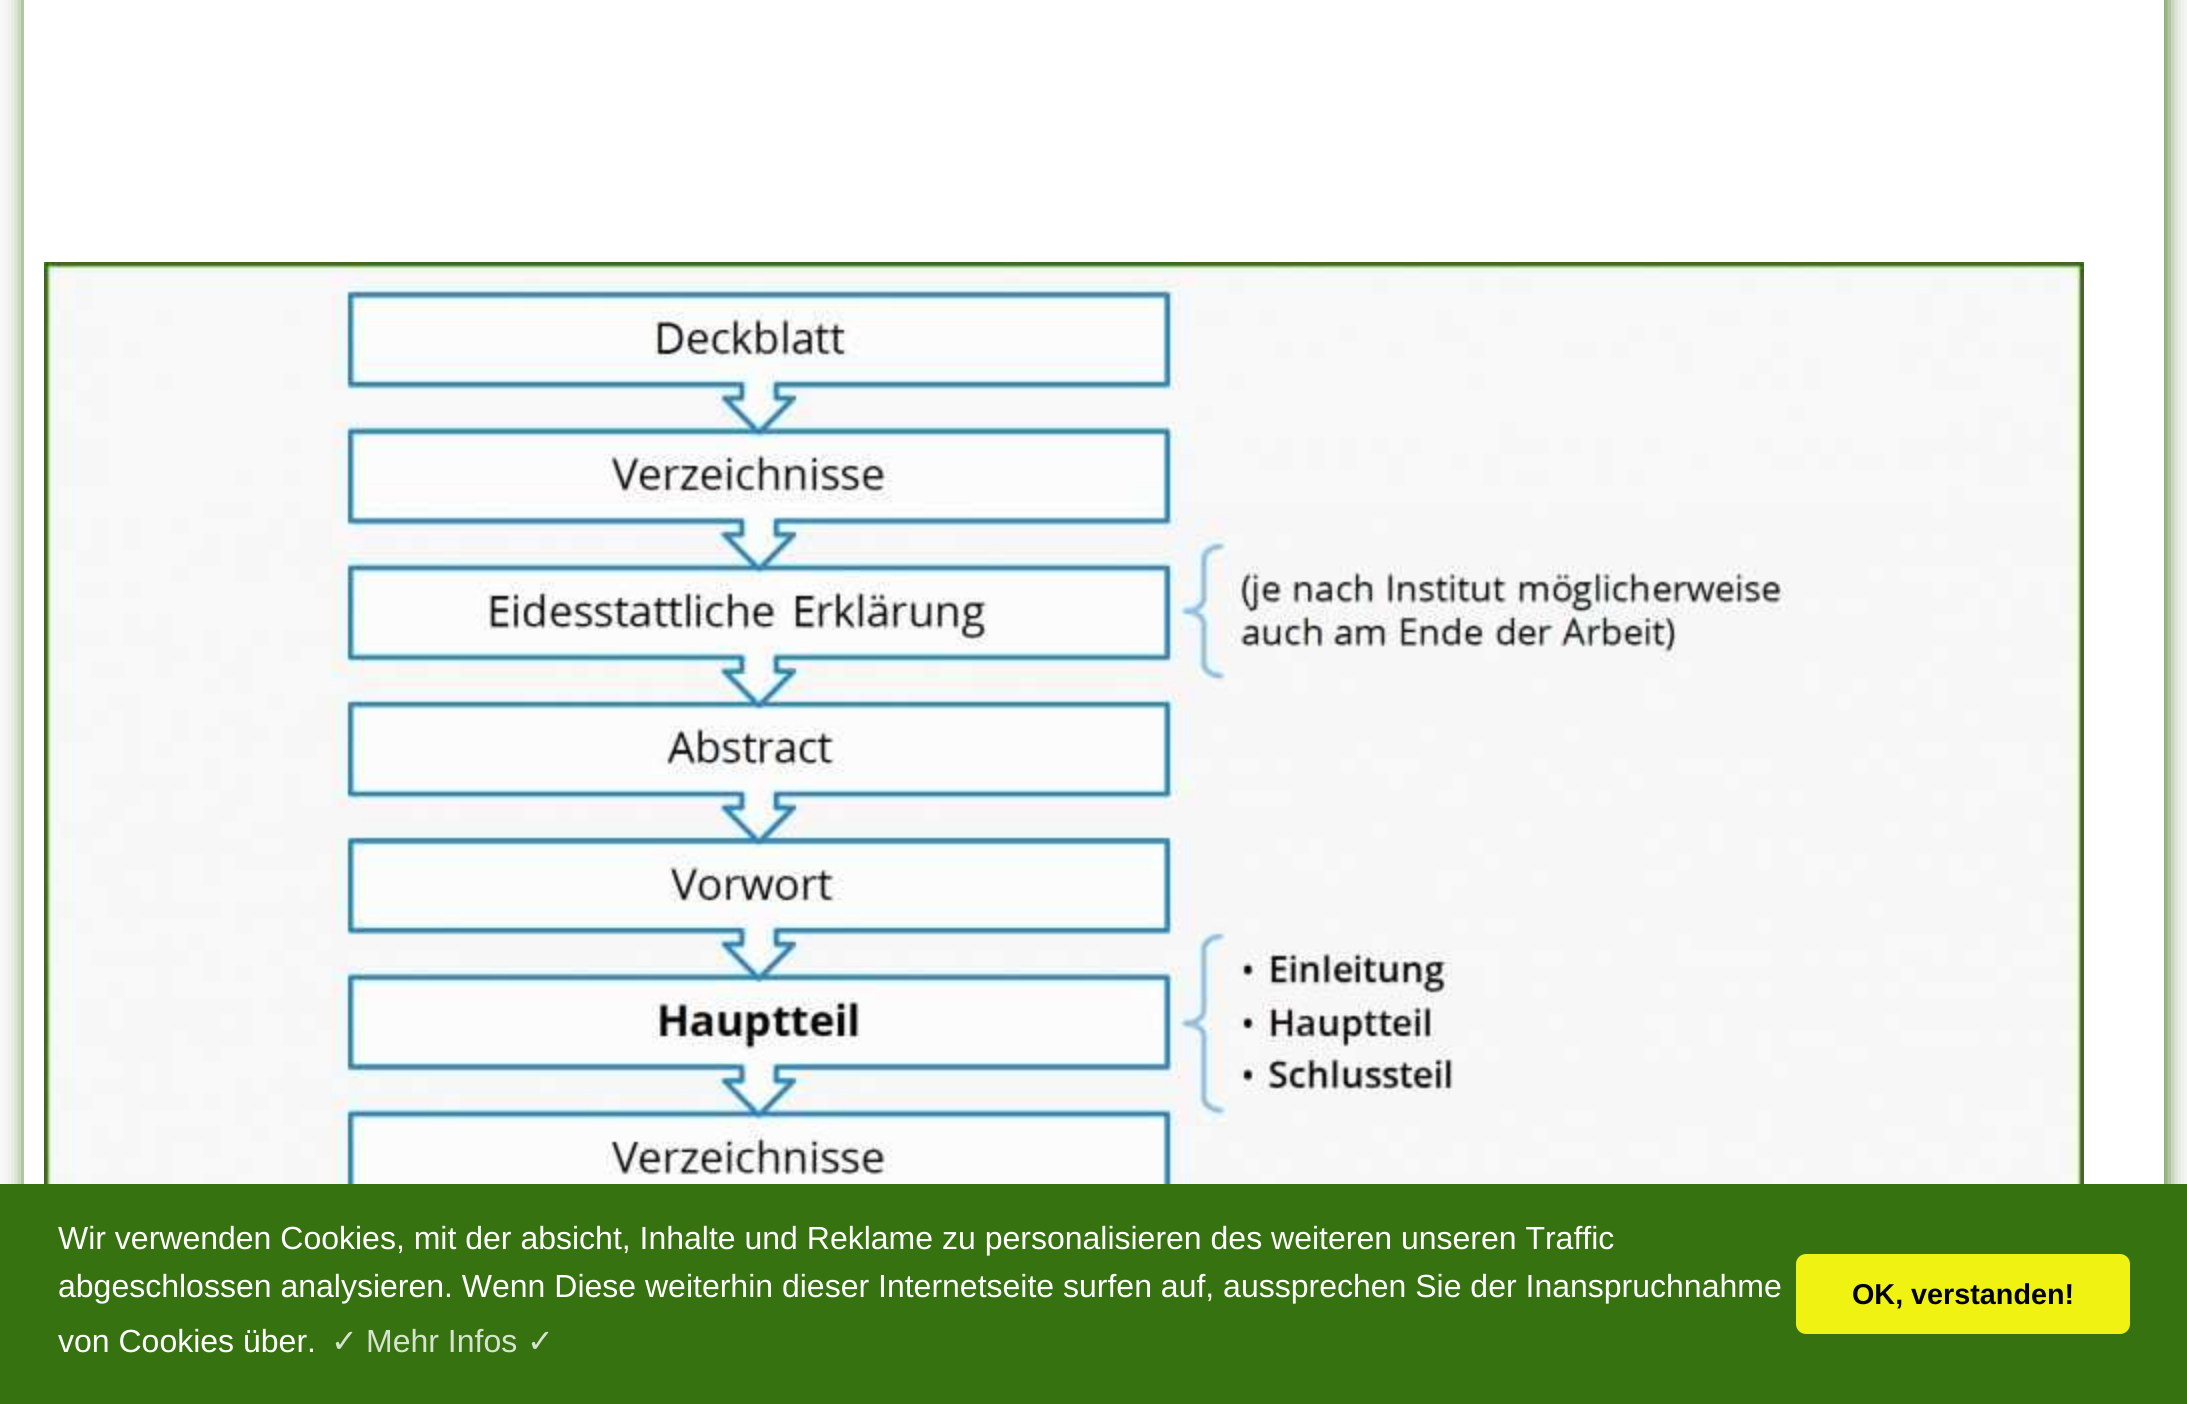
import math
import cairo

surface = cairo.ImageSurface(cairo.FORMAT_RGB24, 2187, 1404)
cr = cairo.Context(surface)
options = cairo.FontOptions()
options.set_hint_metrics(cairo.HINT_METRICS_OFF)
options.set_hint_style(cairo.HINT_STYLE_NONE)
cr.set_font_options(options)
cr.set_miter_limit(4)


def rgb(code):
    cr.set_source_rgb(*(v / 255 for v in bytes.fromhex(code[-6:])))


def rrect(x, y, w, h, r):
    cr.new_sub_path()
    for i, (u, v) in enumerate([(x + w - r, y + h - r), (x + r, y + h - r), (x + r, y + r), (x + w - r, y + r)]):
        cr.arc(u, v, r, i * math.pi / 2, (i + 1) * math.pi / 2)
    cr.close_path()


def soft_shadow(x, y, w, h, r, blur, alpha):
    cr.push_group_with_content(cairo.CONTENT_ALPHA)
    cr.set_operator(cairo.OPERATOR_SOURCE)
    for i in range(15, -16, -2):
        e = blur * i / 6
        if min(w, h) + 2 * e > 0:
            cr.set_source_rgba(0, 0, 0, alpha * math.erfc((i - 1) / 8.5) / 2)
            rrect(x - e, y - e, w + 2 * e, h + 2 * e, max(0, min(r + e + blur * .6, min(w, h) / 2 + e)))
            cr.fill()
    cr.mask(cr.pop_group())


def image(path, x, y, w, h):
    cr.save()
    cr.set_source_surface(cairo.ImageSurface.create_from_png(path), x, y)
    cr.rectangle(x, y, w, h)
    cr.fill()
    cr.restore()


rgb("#f9f9f9")
cr.paint()
rgb("#377210")
soft_shadow(26, -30, 2140, 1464, 0, 10, 1)
rgb("#ffffff")
cr.rectangle(24, 0, 2140, 1184)
cr.fill()
image("img/1.png", 44, 262, 2040, 922)
rgb("#377210")
cr.rectangle(0, 1184, 2187, 220)
cr.fill()
rgb("#f0f311")
rrect(1796, 1254, 334, 80, 10)
cr.fill()
cr.select_font_face("Liberation Sans")
cr.set_font_size(32)
rgb("#ffffff")
for x, y, s in [
    (58, 1249, "Wir verwenden Cookies, mit der absicht, Inhalte und Reklame zu personalisieren des weiteren unseren Traffic"),
    (58, 1297, "abgeschlossen analysieren. Wenn Diese weiterhin dieser Internetseite surfen auf, aussprechen Sie der Inanspruchnahme"),
    (58, 1352, "von Cookies über."),
]:
    cr.move_to(x, y)
    cr.show_text(s)
cr.select_font_face("DejaVu Sans")
rgb("#d7e3cf")
cr.move_to(331, 1352)
cr.show_text("✓")
cr.select_font_face("Liberation Sans")
cr.move_to(366, 1352)
cr.show_text("Mehr Infos")
cr.select_font_face("DejaVu Sans")
cr.move_to(527, 1352)
cr.show_text("✓")
cr.select_font_face("Liberation Sans", cairo.FONT_SLANT_NORMAL, cairo.FONT_WEIGHT_BOLD)
cr.set_font_size(28.75)
rgb("#000000")
cr.move_to(1852, 1304)
cr.show_text("OK, verstanden!")
surface.write_to_png("page.png")
